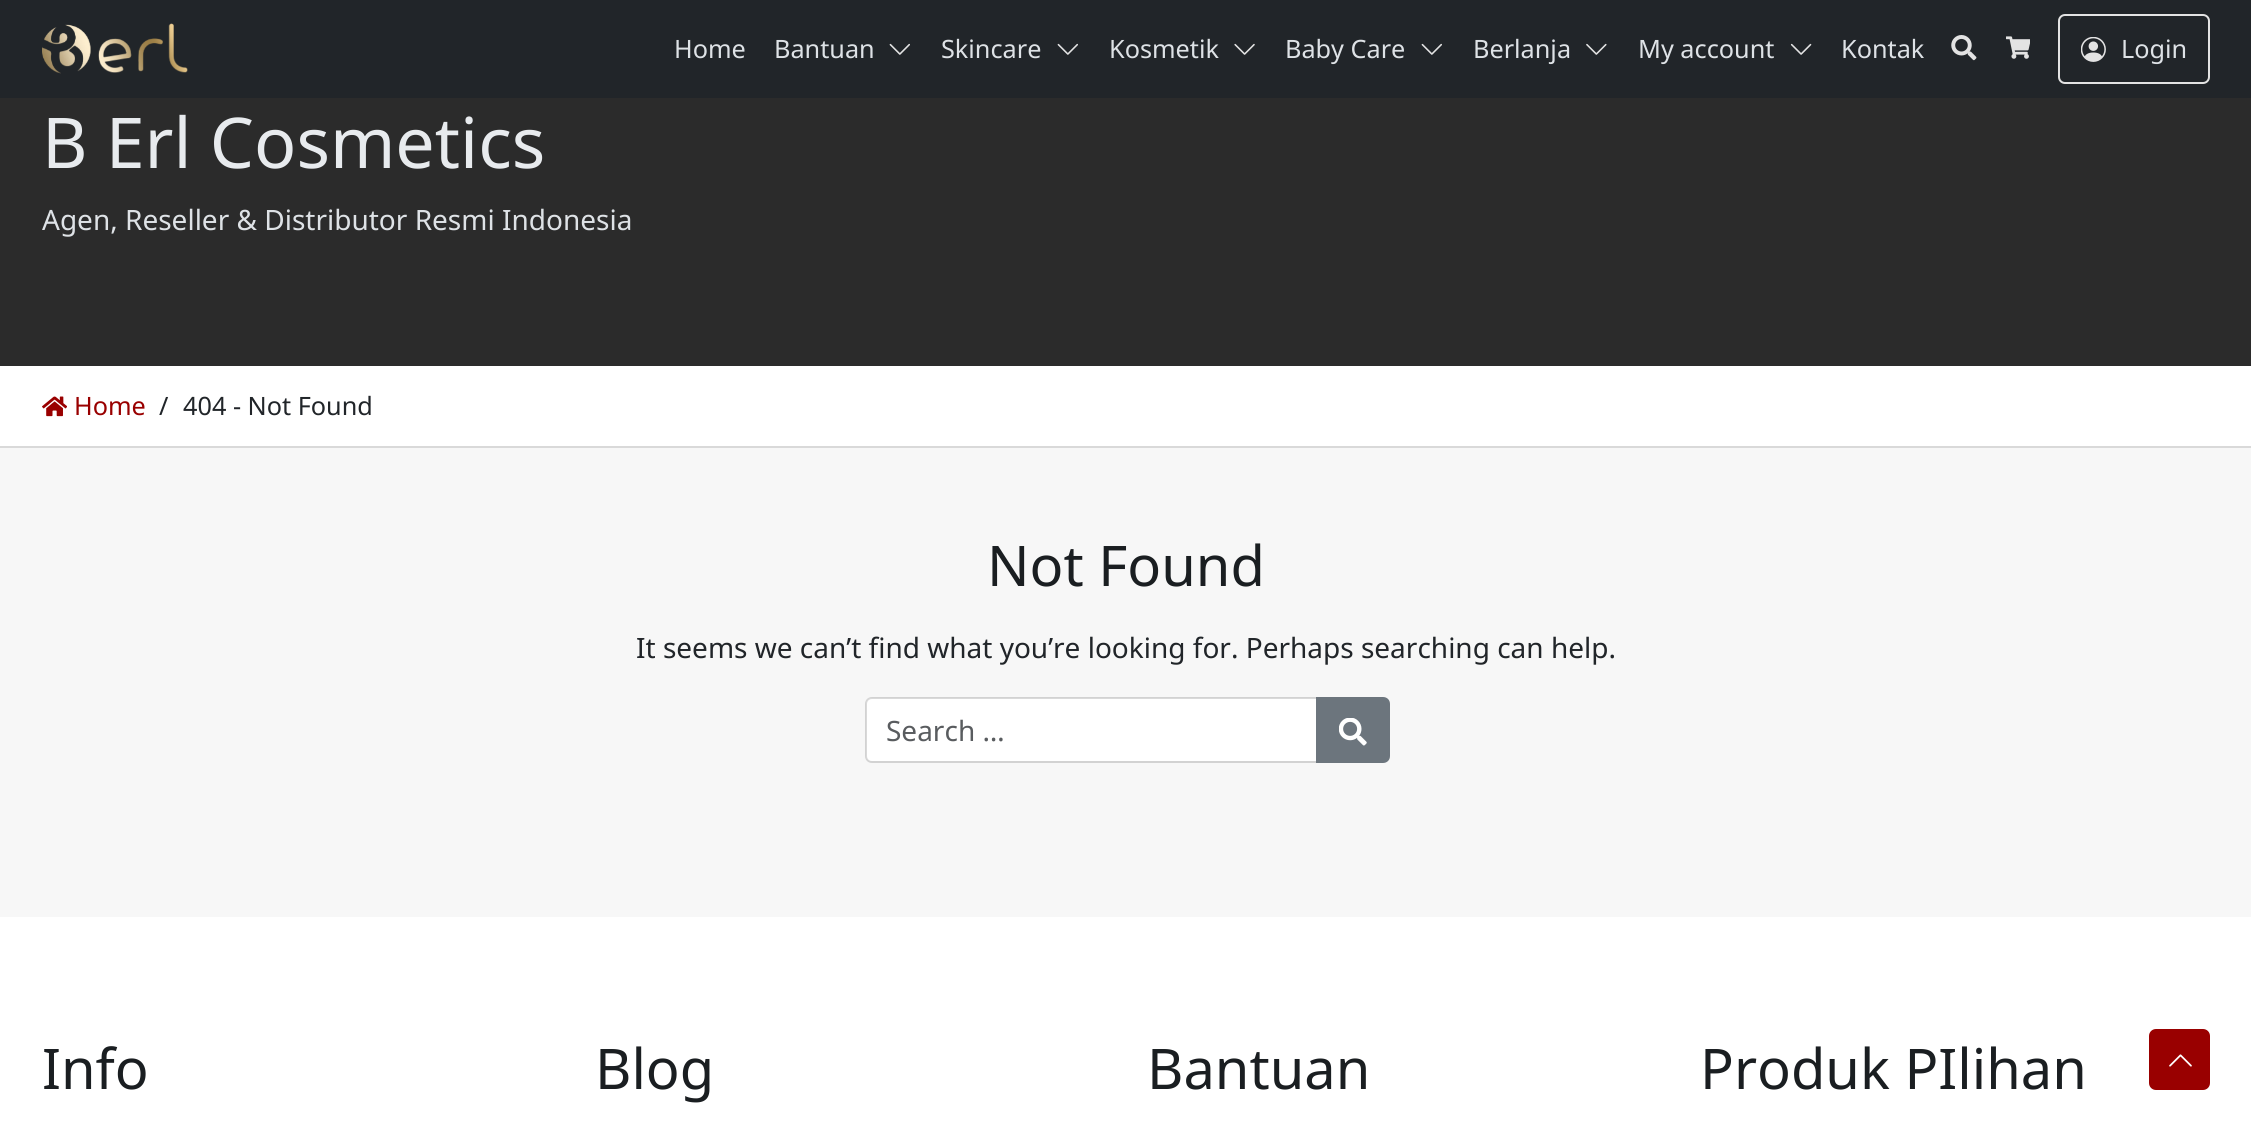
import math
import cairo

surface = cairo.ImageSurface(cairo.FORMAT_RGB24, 2251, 1132)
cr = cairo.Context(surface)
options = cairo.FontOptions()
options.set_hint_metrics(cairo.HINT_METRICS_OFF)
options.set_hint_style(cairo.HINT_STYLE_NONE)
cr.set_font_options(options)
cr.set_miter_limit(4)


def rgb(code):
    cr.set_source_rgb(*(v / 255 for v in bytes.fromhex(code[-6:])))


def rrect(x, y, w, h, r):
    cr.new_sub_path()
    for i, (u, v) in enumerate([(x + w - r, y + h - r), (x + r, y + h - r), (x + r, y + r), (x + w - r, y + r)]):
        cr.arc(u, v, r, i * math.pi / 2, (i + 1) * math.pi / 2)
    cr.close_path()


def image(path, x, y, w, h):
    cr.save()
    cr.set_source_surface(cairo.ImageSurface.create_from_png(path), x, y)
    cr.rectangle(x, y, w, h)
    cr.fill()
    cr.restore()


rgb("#f7f7f7")
cr.paint()
rgb("#212529")
cr.rectangle(0, 0, 2251, 98)
cr.fill()
image("img/1.png", 42, 23, 146, 51)
image("img/2.png", 889, 43, 21, 12)
image("img/2.png", 1057, 43, 21, 12)
image("img/3.png", 1234, 43, 21, 12)
image("img/2.png", 1421, 43, 21, 12)
image("img/4.png", 1586, 43, 21, 12)
image("img/5.png", 1790, 43, 22, 12)
image("img/6.png", 1951, 35, 26, 26)
image("img/7.png", 2006, 36, 24, 23)
rrect(2059, 15, 150, 68, 6)
rgb("#e3e3e3")
cr.stroke()
image("img/8.png", 2081, 37, 25, 25)
for x, y, w, h, color in [
    (0, 98, 2251, 268, "#2b2b2b"),
    (0, 366, 2251, 80, "#ffffff"),
    (0, 446, 2251, 2, "#d9d9d9"),
]:
    rgb(color)
    cr.rectangle(x, y, w, h)
    cr.fill()
image("img/9.png", 42, 396, 25, 21)
rgb("#ffffff")
cr.new_path()
cr.move_to(871, 698)
cr.line_to(1316, 698)
cr.line_to(1316, 761)
cr.line_to(871, 761)
cr.curve_to(868, 761, 866, 759, 866, 756)
cr.line_to(866, 703)
cr.curve_to(866, 700, 868, 698, 871, 698)
cr.close_path()
cr.fill()
cr.new_path()
cr.move_to(872, 698)
cr.line_to(1317, 698)
cr.line_to(1317, 762)
cr.line_to(872, 762)
cr.curve_to(868.5, 762, 866, 759.5, 866, 756)
cr.line_to(866, 704)
cr.curve_to(866, 700.5, 868.5, 698, 872, 698)
cr.close_path()
cr.set_source_rgba(0, 0, 0, 0.15)
cr.stroke()
rgb("#6c757d")
cr.new_path()
cr.move_to(1317, 698)
cr.line_to(1383, 698)
cr.curve_to(1386.5, 698, 1389, 700.5, 1389, 704)
cr.line_to(1389, 756)
cr.curve_to(1389, 759.5, 1386.5, 762, 1383, 762)
cr.line_to(1317, 762)
cr.close_path()
cr.fill_preserve()
cr.stroke()
image("img/10.png", 1339, 718, 28, 28)
rgb("#ffffff")
cr.rectangle(0, 917, 2251, 215)
cr.fill()
rgb("#990000")
rrect(2149, 1029, 61, 61, 7)
cr.fill()
image("img/11.png", 2169, 1054, 23, 13)
cr.select_font_face("Noto Sans")
cr.set_font_size(25.25)
rgb("#dee2e6")
for x, y, s in [
    (674, 58, "Home"),
    (774, 58, "Bantuan"),
    (941, 58, "Skincare"),
    (1109, 58, "Kosmetik"),
    (1285, 58, "Baby Care"),
    (1473, 58, "Berlanja"),
    (1638, 58, "My account"),
    (1841, 58, "Kontak"),
    (2121, 58, "Login"),
]:
    cr.move_to(x, y)
    cr.show_text(s)
cr.set_font_size(70)
rgb("#e8ebee")
cr.move_to(42, 168)
cr.show_text("B Erl Cosmetics")
cr.set_font_size(28)
rgb("#dee2e6")
cr.move_to(42, 230)
cr.show_text("Agen, Reseller & Distributor Resmi Indonesia")
cr.set_font_size(25.25)
rgb("#990000")
cr.move_to(74, 415)
cr.show_text("Home")
rgb("#212529")
cr.move_to(159, 415)
cr.show_text("/")
cr.move_to(183, 415)
cr.show_text("404 - Not Found")
cr.set_font_size(56)
rgb("#1a1e21")
cr.move_to(987, 586)
cr.show_text("Not Found")
cr.set_font_size(28)
rgb("#212529")
cr.move_to(636, 658)
cr.show_text("It seems we can’t find what you’re looking for. Perhaps searching can help.")
rgb("#595c5f")
cr.move_to(886, 741)
cr.show_text("Search …")
cr.set_font_size(56)
rgb("#1a1e21")
for x, y, s in [
    (42, 1089, "Info"),
    (595, 1089, "Blog"),
    (1147, 1089, "Bantuan"),
    (1700, 1089, "Produk PIlihan"),
]:
    cr.move_to(x, y)
    cr.show_text(s)
surface.write_to_png("page.png")
